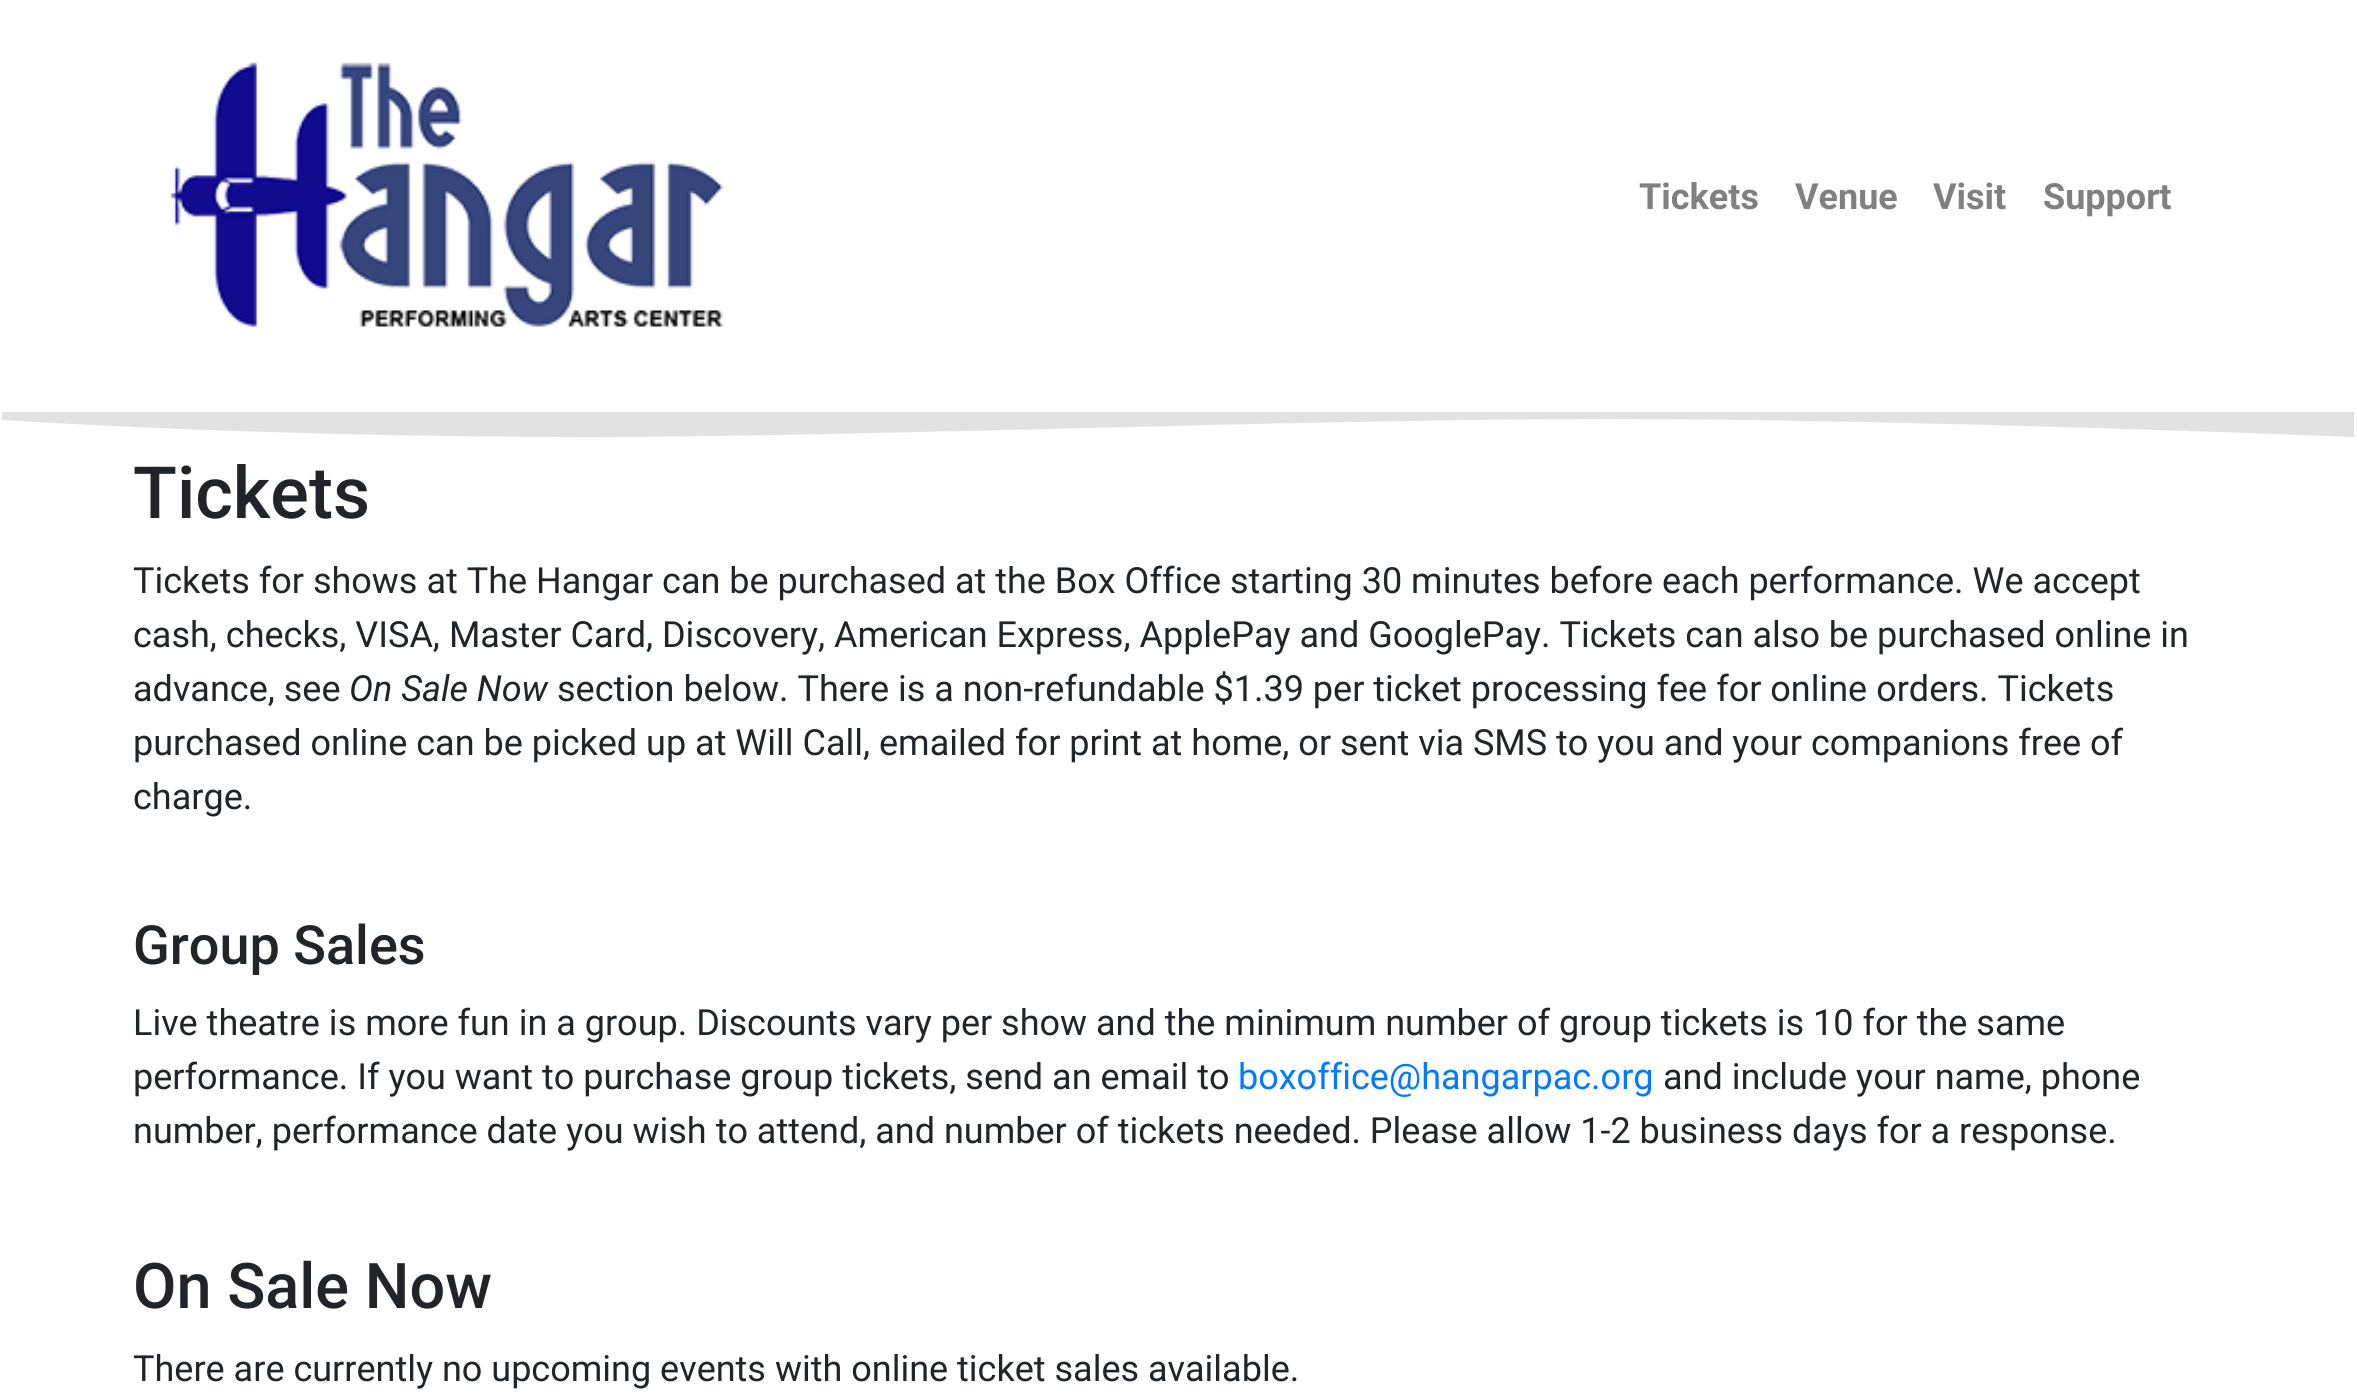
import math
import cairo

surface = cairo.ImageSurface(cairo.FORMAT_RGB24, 2357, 1395)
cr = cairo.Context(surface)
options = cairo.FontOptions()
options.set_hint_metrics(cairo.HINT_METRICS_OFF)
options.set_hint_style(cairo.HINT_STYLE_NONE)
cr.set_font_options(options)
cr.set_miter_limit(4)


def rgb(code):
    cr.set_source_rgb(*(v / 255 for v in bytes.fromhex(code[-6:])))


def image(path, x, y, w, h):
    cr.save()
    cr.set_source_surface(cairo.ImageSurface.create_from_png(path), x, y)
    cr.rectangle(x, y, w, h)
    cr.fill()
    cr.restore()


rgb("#ffffff")
cr.paint()
image("img/1.png", 170, 62, 555, 265)
rgb("#e2e2e2")
cr.new_path()
cr.move_to(2, 412)
cr.line_to(2354, 412)
cr.line_to(2354, 437)
cr.curve_to(2354, 437, 1910, 419, 1608, 419)
cr.curve_to(1306, 419, 860, 437, 589, 437)
cr.curve_to(252, 437, 2, 420, 2, 420)
cr.close_path()
cr.fill()
cr.select_font_face("Roboto", cairo.FONT_SLANT_NORMAL, cairo.FONT_WEIGHT_BOLD)
cr.set_font_size(36)
rgb("#808080")
for x, y, s in [
    (1639, 209, "Tickets"),
    (1795, 209, "Venue"),
    (1933, 209, "Visit"),
    (2043, 209, "Support"),
]:
    cr.move_to(x, y)
    cr.show_text(s)
cr.select_font_face("Roboto Medium")
cr.set_font_size(72)
rgb("#212529")
cr.move_to(133, 518)
cr.show_text("Tickets")
cr.select_font_face("Roboto")
cr.set_font_size(36)
for x, y, s in [
    (133, 593, "Tickets for shows at The Hangar can be purchased at the Box Office starting 30 minutes before each performance. We accept"),
    (133, 647, "cash, checks, VISA, Master Card, Discovery, American Express, ApplePay and GooglePay. Tickets can also be purchased online in"),
    (133, 701, "advance, see"),
]:
    cr.move_to(x, y)
    cr.show_text(s)
cr.select_font_face("Roboto", cairo.FONT_SLANT_ITALIC)
cr.move_to(349, 701)
cr.show_text("On Sale Now")
cr.select_font_face("Roboto")
for x, y, s in [
    (557, 701, "section below. There is a non-refundable $1.39 per ticket processing fee for online orders. Tickets"),
    (133, 755, "purchased online can be picked up at Will Call, emailed for print at home, or sent via SMS to you and your companions free of"),
    (133, 809, "charge."),
]:
    cr.move_to(x, y)
    cr.show_text(s)
cr.select_font_face("Roboto Medium")
cr.set_font_size(54)
cr.move_to(133, 964)
cr.show_text("Group Sales")
cr.select_font_face("Roboto")
cr.set_font_size(36)
cr.move_to(133, 1035)
cr.show_text("Live theatre is more fun in a group. Discounts vary per show and the minimum number of group tickets is 10 for the same")
cr.move_to(133, 1089)
cr.show_text("performance. If you want to purchase group tickets, send an email to")
rgb("#007bff")
cr.move_to(1238, 1089)
cr.show_text("boxoffice@hangarpac.org")
rgb("#212529")
cr.move_to(1663, 1089)
cr.show_text("and include your name, phone")
cr.move_to(133, 1143)
cr.show_text("number, performance date you wish to attend, and number of tickets needed. Please allow 1-2 business days for a response.")
cr.select_font_face("Roboto Medium")
cr.set_font_size(63)
cr.move_to(133, 1308)
cr.show_text("On Sale Now")
cr.select_font_face("Roboto")
cr.set_font_size(36)
cr.move_to(133, 1381)
cr.show_text("There are currently no upcoming events with online ticket sales available.")
surface.write_to_png("page.png")
